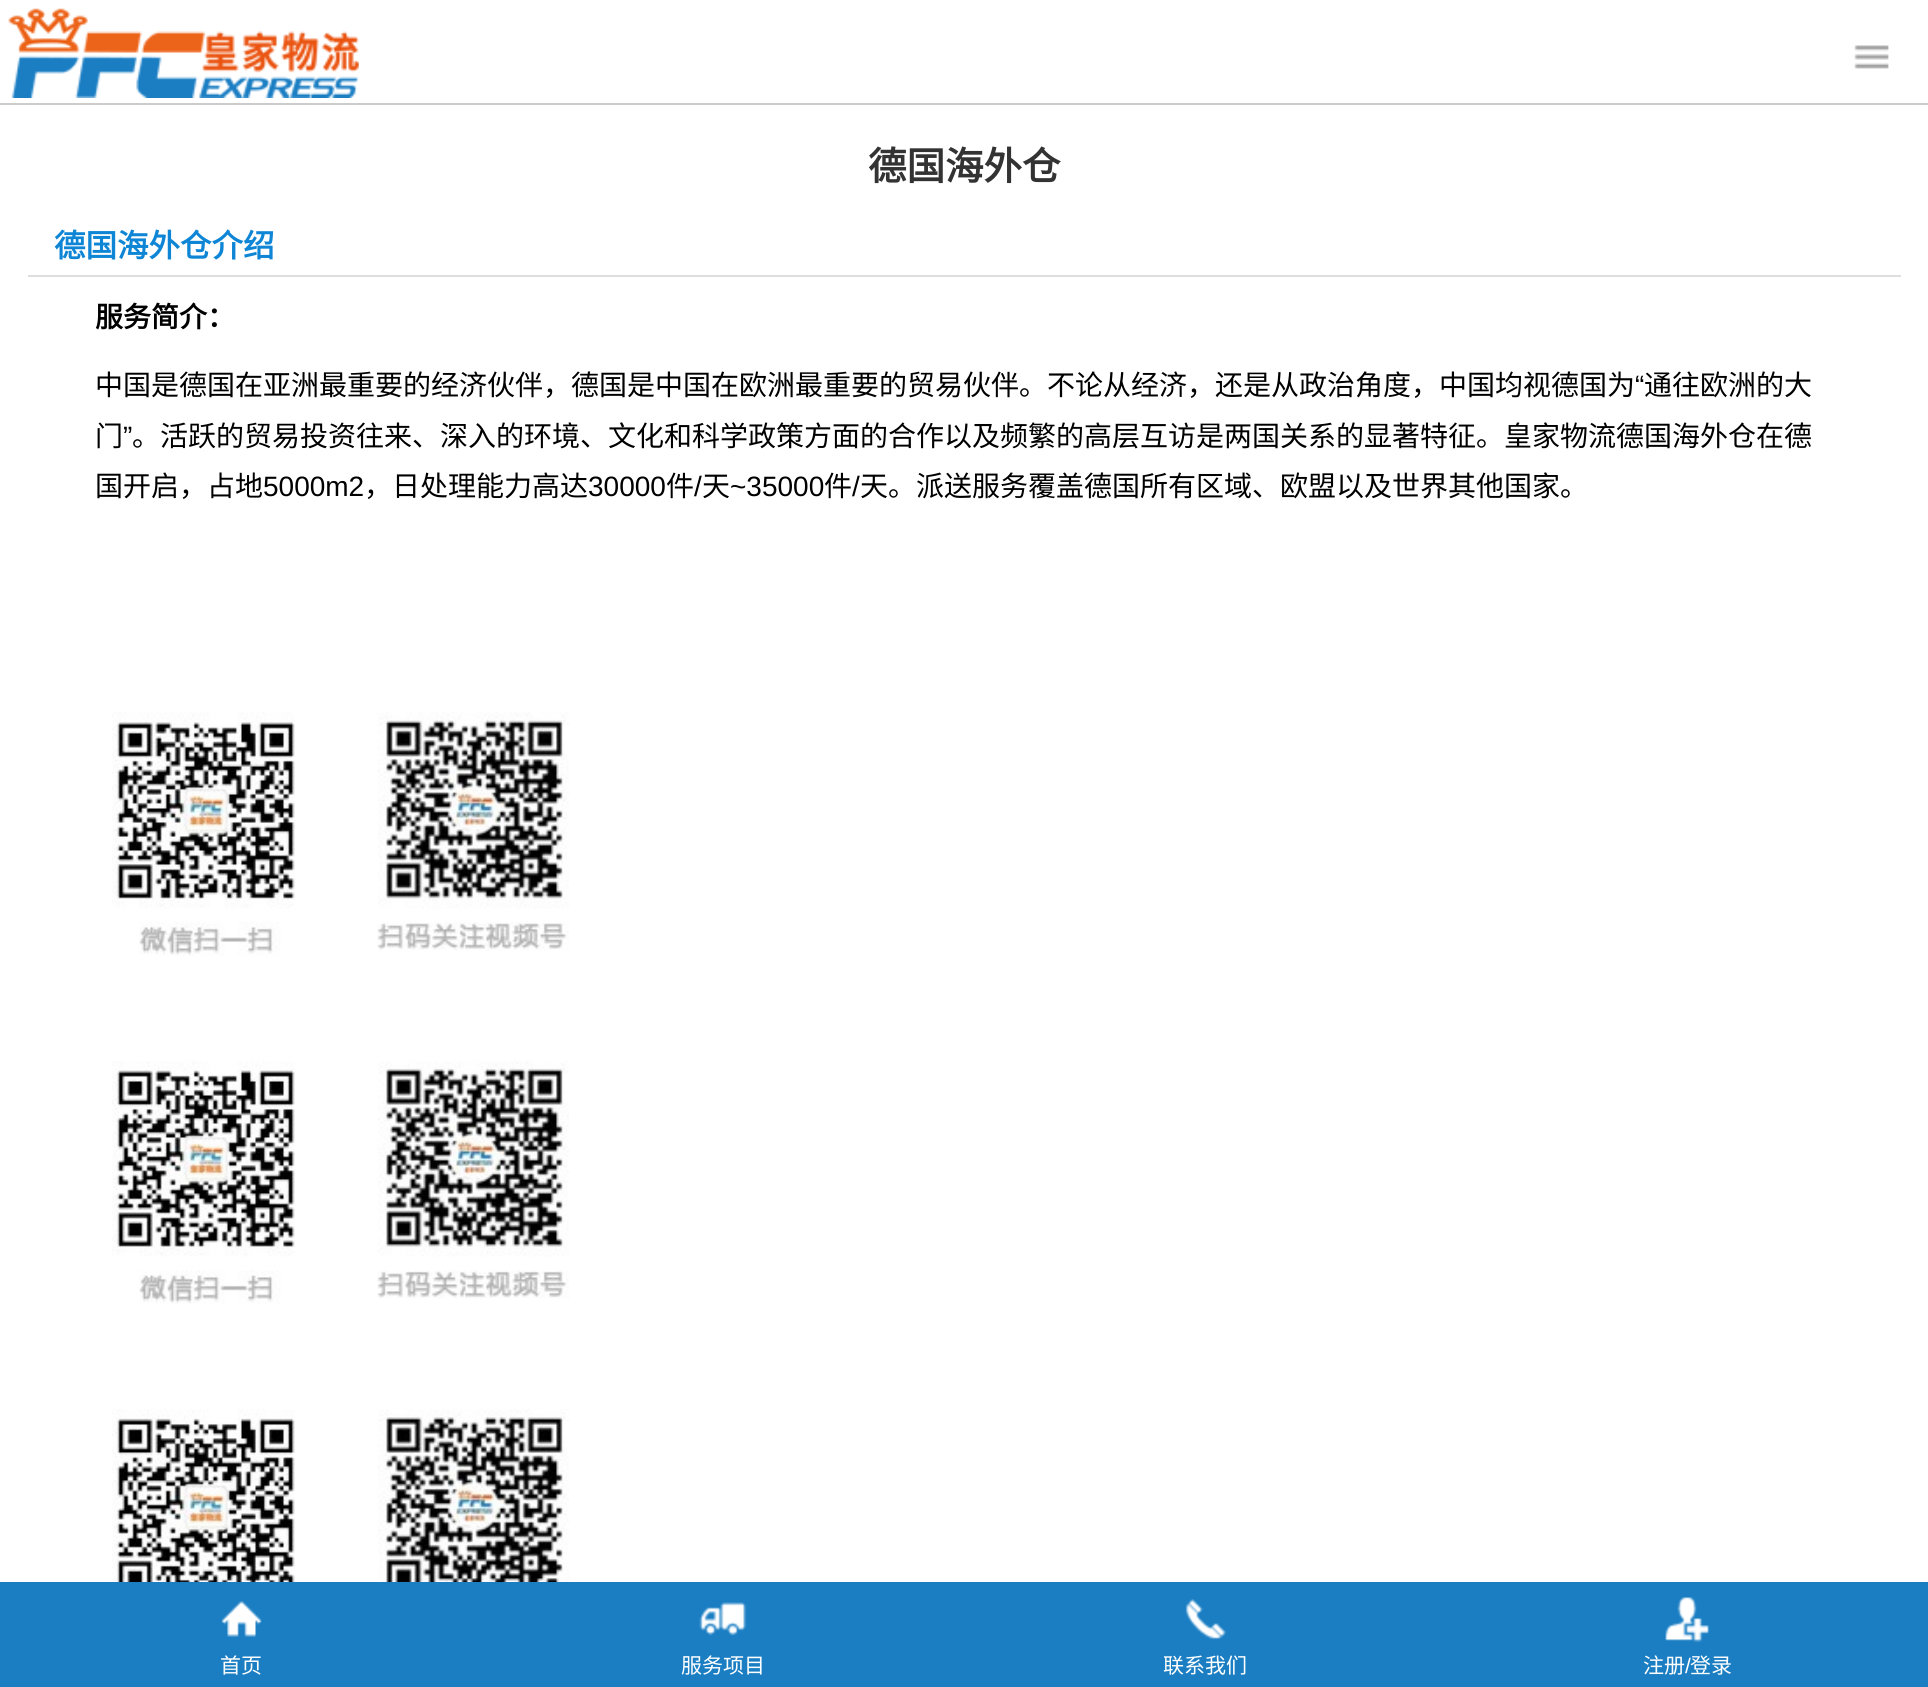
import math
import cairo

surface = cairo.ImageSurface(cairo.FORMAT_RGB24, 1928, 1687)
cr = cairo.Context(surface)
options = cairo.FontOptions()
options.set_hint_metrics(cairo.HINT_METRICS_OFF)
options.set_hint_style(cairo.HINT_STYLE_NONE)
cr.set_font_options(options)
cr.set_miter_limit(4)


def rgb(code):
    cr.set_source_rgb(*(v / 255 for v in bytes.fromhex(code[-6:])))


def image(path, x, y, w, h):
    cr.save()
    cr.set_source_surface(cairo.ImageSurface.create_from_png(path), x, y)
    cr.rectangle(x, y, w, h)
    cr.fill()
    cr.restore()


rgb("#ffffff")
cr.paint()
rgb("#cccccc")
cr.rectangle(0, 103, 1928, 2)
cr.fill()
image("img/1.png", 8, 8, 351, 90)
image("img/2.png", 1854, 45, 35, 24)
rgb("#dedede")
cr.rectangle(28, 275, 1873, 2)
cr.fill()
image("img/3.png", 112, 712, 457, 244)
image("img/4.png", 112, 1061, 457, 243)
image("img/5.png", 112, 1409, 457, 173)
rgb("#1b7ec3")
cr.rectangle(0, 1582, 1928, 105)
cr.fill()
image("img/6.png", 221, 1601, 41, 36)
image("img/7.png", 699, 1602, 48, 34)
image("img/8.png", 1185, 1599, 41, 41)
image("img/9.png", 1665, 1597, 45, 46)
cr.select_font_face("Noto Sans CJK SC", cairo.FONT_SLANT_NORMAL, cairo.FONT_WEIGHT_BOLD)
cr.set_font_size(38.5)
rgb("#333333")
cr.move_to(868, 180)
cr.show_text("德国海外仓")
cr.set_font_size(31.5)
rgb("#0e86d5")
cr.move_to(54, 257)
cr.show_text("德国海外仓介绍")
cr.set_font_size(28)
rgb("#000000")
cr.move_to(95, 327)
cr.show_text("服务简介：")
cr.select_font_face("Noto Sans CJK SC")
cr.move_to(95, 395)
cr.show_text("中国是德国在亚洲最重要的经济伙伴，德国是中国在欧洲最重要的贸易伙伴。不论从经济，还是从政治角度，中国均视德国为")
cr.select_font_face("Liberation Sans")
cr.move_to(1635, 395)
cr.show_text("“")
cr.select_font_face("Noto Sans CJK SC")
cr.move_to(1644, 395)
cr.show_text("通往欧洲的大")
cr.move_to(95, 446)
cr.show_text("门")
cr.select_font_face("Liberation Sans")
cr.move_to(123, 446)
cr.show_text("”")
cr.select_font_face("Noto Sans CJK SC")
cr.move_to(132, 446)
cr.show_text("。活跃的贸易投资往来、深入的环境、文化和科学政策方面的合作以及频繁的高层互访是两国关系的显著特征。皇家物流德国海外仓在德")
cr.move_to(95, 496)
cr.show_text("国开启，占地")
cr.select_font_face("Liberation Sans")
cr.move_to(263, 496)
cr.show_text("5000m2")
cr.select_font_face("Noto Sans CJK SC")
cr.move_to(364, 496)
cr.show_text("，日处理能力高达")
cr.select_font_face("Liberation Sans")
cr.move_to(588, 496)
cr.show_text("30000")
cr.select_font_face("Noto Sans CJK SC")
cr.move_to(666, 496)
cr.show_text("件")
cr.select_font_face("Liberation Sans")
cr.move_to(694, 496)
cr.show_text("/")
cr.select_font_face("Noto Sans CJK SC")
cr.move_to(702, 496)
cr.show_text("天")
cr.select_font_face("Liberation Sans")
cr.move_to(730, 496)
cr.show_text("~35000")
cr.select_font_face("Noto Sans CJK SC")
cr.move_to(824, 496)
cr.show_text("件")
cr.select_font_face("Liberation Sans")
cr.move_to(852, 496)
cr.show_text("/")
cr.select_font_face("Noto Sans CJK SC")
cr.move_to(860, 496)
cr.show_text("天。派送服务覆盖德国所有区域、欧盟以及世界其他国家。")
cr.set_font_size(21)
rgb("#ffffff")
for x, y, s in [
    (220, 1673, "首页"),
    (681, 1673, "服务项目"),
    (1163, 1673, "联系我们"),
    (1643, 1673, "注册"),
]:
    cr.move_to(x, y)
    cr.show_text(s)
cr.select_font_face("Liberation Sans")
cr.move_to(1685, 1673)
cr.show_text("/")
cr.select_font_face("Noto Sans CJK SC")
cr.move_to(1690, 1673)
cr.show_text("登录")
surface.write_to_png("page.png")
